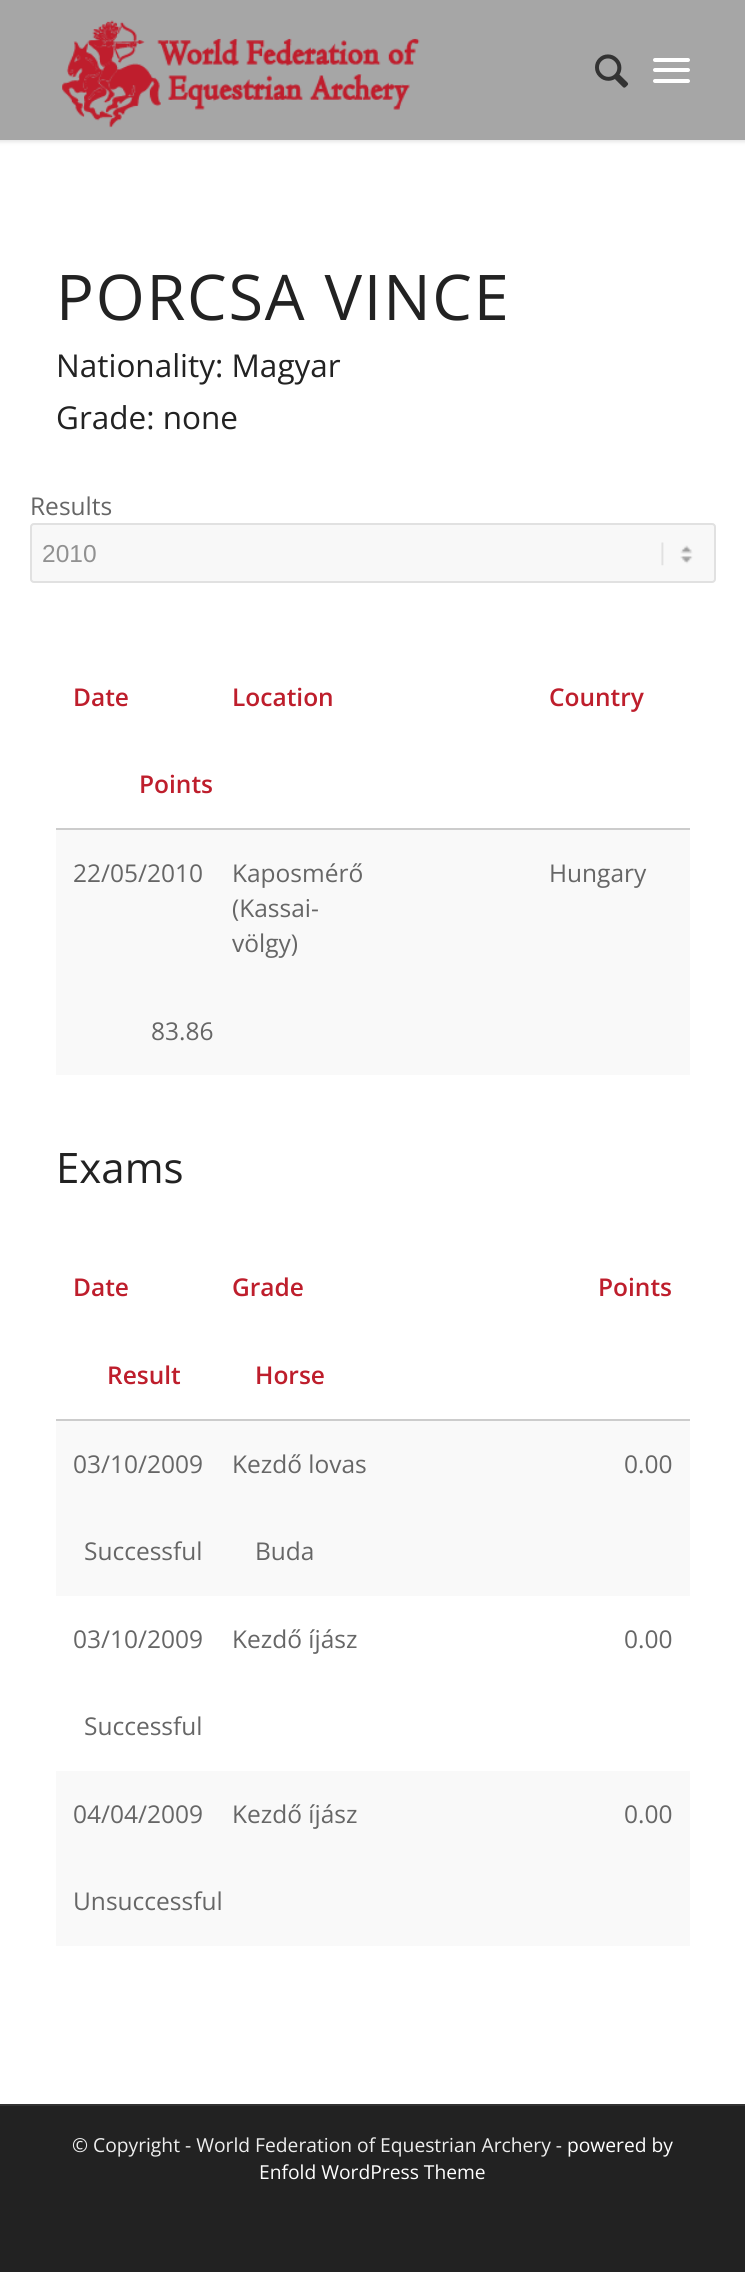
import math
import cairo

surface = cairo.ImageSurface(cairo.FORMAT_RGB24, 745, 2272)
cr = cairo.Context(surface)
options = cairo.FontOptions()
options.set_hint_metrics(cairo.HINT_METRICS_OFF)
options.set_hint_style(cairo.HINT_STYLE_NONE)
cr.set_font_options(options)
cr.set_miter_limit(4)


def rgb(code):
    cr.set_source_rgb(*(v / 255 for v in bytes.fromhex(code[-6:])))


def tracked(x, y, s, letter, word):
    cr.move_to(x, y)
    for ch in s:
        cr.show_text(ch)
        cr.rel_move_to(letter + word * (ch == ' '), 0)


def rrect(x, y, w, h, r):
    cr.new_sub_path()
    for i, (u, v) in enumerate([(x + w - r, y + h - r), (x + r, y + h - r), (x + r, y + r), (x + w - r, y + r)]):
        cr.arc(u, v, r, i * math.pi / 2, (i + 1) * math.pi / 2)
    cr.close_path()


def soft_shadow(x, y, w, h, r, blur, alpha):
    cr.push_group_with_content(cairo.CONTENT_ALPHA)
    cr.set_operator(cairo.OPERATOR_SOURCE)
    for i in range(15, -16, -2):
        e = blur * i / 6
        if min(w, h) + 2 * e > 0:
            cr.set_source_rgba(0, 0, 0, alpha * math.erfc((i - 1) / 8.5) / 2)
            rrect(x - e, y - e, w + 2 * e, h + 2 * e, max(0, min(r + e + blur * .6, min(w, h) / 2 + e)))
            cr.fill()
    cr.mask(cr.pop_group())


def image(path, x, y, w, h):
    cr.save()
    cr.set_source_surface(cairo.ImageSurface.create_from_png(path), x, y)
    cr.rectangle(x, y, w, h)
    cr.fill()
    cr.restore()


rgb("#222222")
cr.paint()
rgb("#ffffff")
cr.rectangle(0, 140, 745, 1964)
cr.fill()
rgb("#000000")
soft_shadow(-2, -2, 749, 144, 0, 2, 0.1)
rgb("#a6a6a6")
cr.rectangle(0, 0, 745, 140)
cr.fill()
image("img/1.png", 62, 20, 358, 108)
image("img/2.png", 595, 54, 34, 34)
rgb("#ffffff")
rrect(653, 68, 37, 4, 2)
cr.fill()
rrect(653, 58, 37, 4, 2)
cr.fill()
rrect(653, 79, 37, 4, 2)
cr.fill()
rgb("#f8f8f8")
rrect(30, 523, 686, 60, 4)
cr.fill()
image("img/3.png", 661, 542, 32, 24)
rrect(31, 524, 684, 58, 3)
rgb("#e1e1e1")
cr.stroke()
for x, y, w, h, color in [
    (56, 828, 634, 2, "#cccccc"),
    (56, 830, 634, 245, "#f9f9f9"),
    (56, 1419, 634, 2, "#cccccc"),
    (56, 1421, 634, 175, "#f9f9f9"),
    (56, 1771, 634, 175, "#f9f9f9"),
    (0, 2104, 745, 2, "#333333"),
]:
    rgb(color)
    cr.rectangle(x, y, w, h)
    cr.fill()
cr.select_font_face("Open Sans")
cr.set_font_size(63)
rgb("#222222")
tracked(56, 320, "PORCSA VINCE", 1.75, 0)
cr.set_font_size(31.5)
cr.move_to(56, 377)
cr.show_text("Nationality: Magyar")
cr.move_to(56, 429)
cr.show_text("Grade: none")
cr.set_font_size(24.5)
rgb("#666666")
cr.move_to(30, 515)
cr.show_text("Results")
cr.select_font_face("Liberation Sans")
rgb("#919191")
cr.move_to(42, 562)
cr.show_text("2010")
cr.select_font_face("Open Sans SemiBold")
rgb("#be1e2c")
for x, y, s in [
    (73, 706, "Date"),
    (232, 706, "Location"),
    (549, 706, "Country"),
    (139, 793, "Points"),
]:
    cr.move_to(x, y)
    cr.show_text(s)
cr.select_font_face("Open Sans")
rgb("#666666")
for x, y, s in [
    (73, 882, "22/05/2010"),
    (232, 882, "Kaposmérő"),
    (232, 917, "(Kassai-"),
    (232, 952, "völgy)"),
    (549, 882, "Hungary"),
    (151, 1040, "83.86"),
]:
    cr.move_to(x, y)
    cr.show_text(s)
cr.set_font_size(42)
rgb("#222222")
cr.move_to(56, 1183)
cr.show_text("Exams")
cr.select_font_face("Open Sans SemiBold")
cr.set_font_size(24.5)
rgb("#be1e2c")
for x, y, s in [
    (73, 1296, "Date"),
    (232, 1296, "Grade"),
    (598, 1296, "Points"),
    (107, 1384, "Result"),
    (255, 1384, "Horse"),
]:
    cr.move_to(x, y)
    cr.show_text(s)
cr.select_font_face("Open Sans")
rgb("#666666")
for x, y, s in [
    (73, 1473, "03/10/2009"),
    (232, 1473, "Kezdő lovas"),
    (624, 1473, "0.00"),
    (84, 1560, "Successful"),
    (255, 1560, "Buda"),
    (73, 1648, "03/10/2009"),
    (232, 1648, "Kezdő íjász"),
    (624, 1648, "0.00"),
    (84, 1735, "Successful"),
    (73, 1823, "04/04/2009"),
    (232, 1823, "Kezdő íjász"),
    (624, 1823, "0.00"),
    (73, 1910, "Unsuccessful"),
]:
    cr.move_to(x, y)
    cr.show_text(s)
cr.set_font_size(19.25)
rgb("#eeeeee")
cr.move_to(72, 2152)
cr.show_text("© Copyright - World Federation of Equestrian Archery -")
rgb("#ffffff")
cr.move_to(567, 2152)
cr.show_text("powered by")
cr.move_to(259, 2179)
cr.show_text("Enfold WordPress Theme")
surface.write_to_png("page.png")
